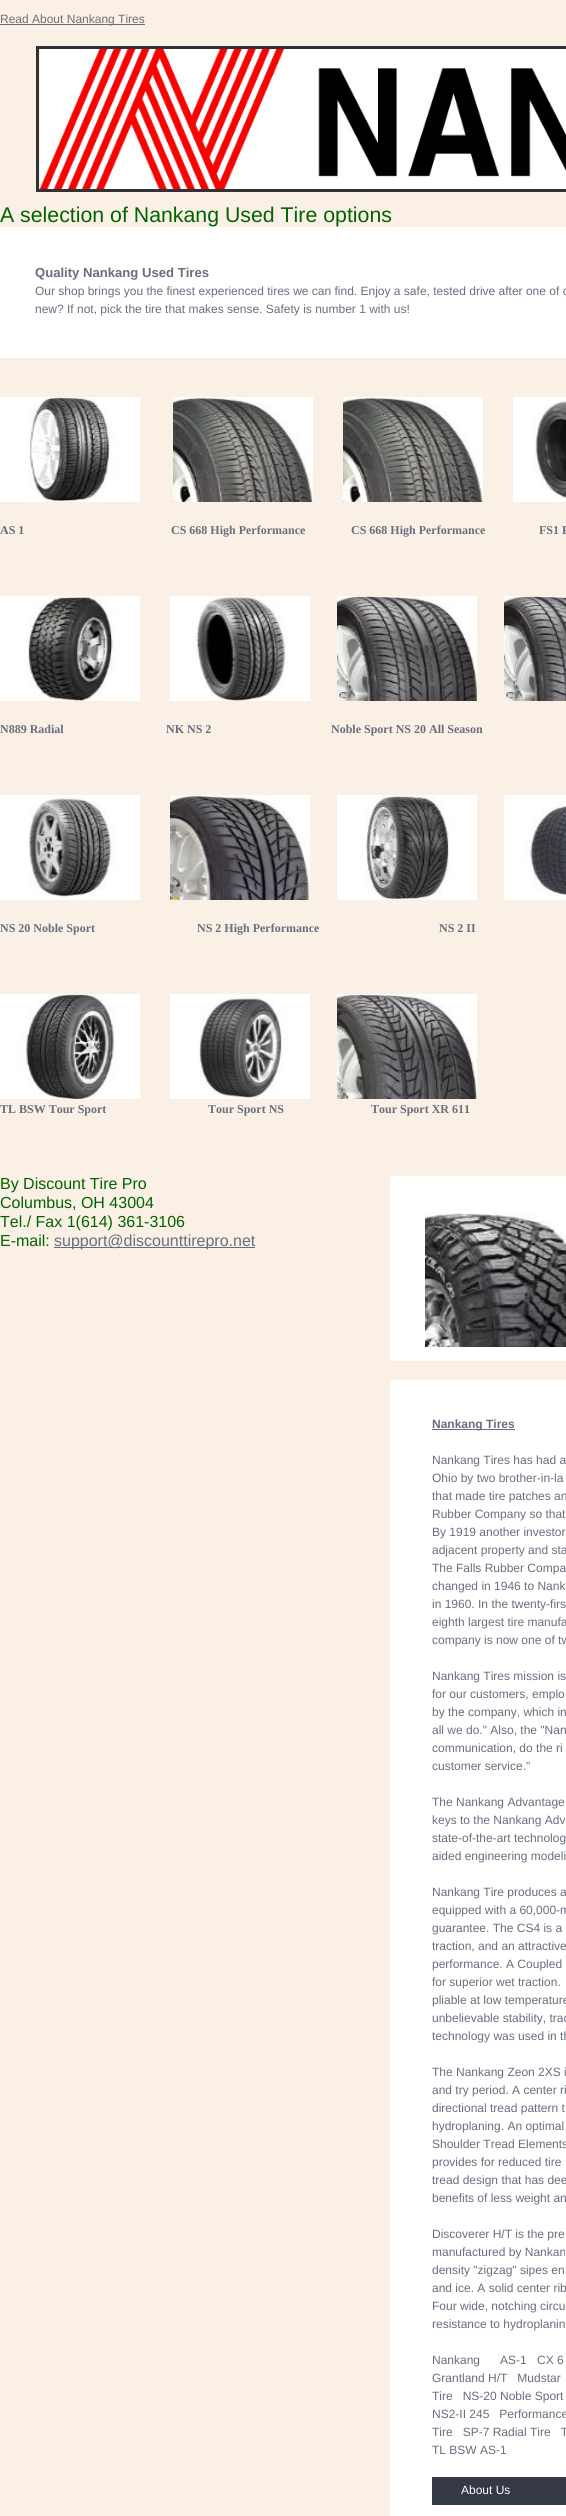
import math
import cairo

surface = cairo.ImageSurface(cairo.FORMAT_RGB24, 566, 2516)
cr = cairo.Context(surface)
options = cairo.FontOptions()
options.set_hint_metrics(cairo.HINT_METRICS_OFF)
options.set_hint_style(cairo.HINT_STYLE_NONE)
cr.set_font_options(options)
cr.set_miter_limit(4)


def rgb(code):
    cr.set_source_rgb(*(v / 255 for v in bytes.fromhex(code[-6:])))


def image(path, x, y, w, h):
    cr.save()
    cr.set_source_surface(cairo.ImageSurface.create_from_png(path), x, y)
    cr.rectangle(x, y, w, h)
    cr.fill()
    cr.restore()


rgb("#faf0e6")
cr.paint()
rgb("#676e7e")
cr.rectangle(0, 24, 145, 1)
cr.fill()
cr.rectangle(37.5, 47.5, 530, 143)
rgb("#2f3236")
cr.set_line_width(3)
cr.stroke()
image("img/1.png", 40, 49, 526, 140)
rgb("#ffffff")
cr.rectangle(0, 227, 566, 131)
cr.fill()
image("img/2.png", 0, 397, 140, 105)
image("img/3.png", 173, 397, 140, 105)
image("img/4.png", 343, 397, 140, 105)
image("img/5.png", 513, 397, 53, 105)
image("img/6.png", 0, 596, 140, 105)
image("img/7.png", 170, 596, 140, 105)
image("img/8.png", 337, 596, 140, 105)
image("img/9.png", 504, 596, 62, 105)
image("img/10.png", 0, 795, 140, 105)
image("img/11.png", 170, 795, 140, 105)
image("img/12.png", 337, 795, 140, 105)
image("img/13.png", 504, 795, 62, 105)
image("img/14.png", 0, 994, 140, 105)
image("img/15.png", 170, 994, 140, 105)
image("img/16.png", 337, 994, 140, 105)
rgb("#676e7e")
cr.rectangle(54, 1247, 201, 1)
cr.fill()
rgb("#ffffff")
cr.rectangle(390, 1176, 176, 185)
cr.fill()
image("img/17.png", 425, 1213, 141, 134)
for x, y, w, h, color in [
    (390, 1380, 176, 1136, "#ffffff"),
    (432, 1429, 83, 1, "#676e7e"),
    (432, 2477, 134, 28, "#353946"),
]:
    rgb(color)
    cr.rectangle(x, y, w, h)
    cr.fill()
cr.select_font_face("Liberation Sans")
cr.set_font_size(12)
rgb("#726e6d")
cr.move_to(0, 23)
cr.show_text("Read About Nankang Tires")
cr.set_font_size(21.3)
rgb("#006400")
cr.move_to(0, 222)
cr.show_text("A selection of Nankang Used Tire options")
cr.select_font_face("Liberation Sans", cairo.FONT_SLANT_NORMAL, cairo.FONT_WEIGHT_BOLD)
cr.set_font_size(13.1)
rgb("#676e7e")
cr.move_to(35, 277)
cr.show_text("Quality Nankang Used Tires")
cr.select_font_face("Liberation Sans")
cr.set_font_size(12)
cr.move_to(35, 295)
cr.show_text("Our shop brings you the finest experienced tires we can find. Enjoy a safe, tested drive after one of o")
cr.move_to(35, 313)
cr.show_text("new? If not, pick the tire that makes sense. Safety is number 1 with us!")
cr.select_font_face("Liberation Serif", cairo.FONT_SLANT_NORMAL, cairo.FONT_WEIGHT_BOLD)
for x, y, s in [
    (0, 534, "AS 1"),
    (171, 534, "CS 668 High Performance"),
    (351, 534, "CS 668 High Performance"),
    (539, 534, "FS1 P"),
    (0, 733, "N889 Radial"),
    (166, 733, "NK NS 2"),
    (331, 733, "Noble Sport NS 20 All Season"),
    (0, 932, "NS 20 Noble Sport"),
    (197, 932, "NS 2 High Performance"),
    (439, 932, "NS 2 II"),
    (0, 1113, "TL BSW Tour Sport"),
    (208, 1113, "Tour Sport NS"),
    (371, 1113, "Tour Sport XR 611"),
]:
    cr.move_to(x, y)
    cr.show_text(s)
cr.select_font_face("Liberation Sans")
cr.set_font_size(16)
rgb("#006400")
for x, y, s in [
    (0, 1189, "By Discount Tire Pro"),
    (0, 1208, "Columbus, OH 43004"),
    (0, 1227, "Tel./ Fax 1(614) 361-3106"),
    (0, 1246, "E-mail:"),
]:
    cr.move_to(x, y)
    cr.show_text(s)
rgb("#676e7e")
cr.move_to(54, 1246)
cr.show_text("support@discounttirepro.net")
cr.select_font_face("Liberation Sans", cairo.FONT_SLANT_NORMAL, cairo.FONT_WEIGHT_BOLD)
cr.set_font_size(12)
cr.move_to(432, 1428)
cr.show_text("Nankang Tires")
cr.select_font_face("Liberation Sans")
for x, y, s in [
    (432, 1464, "Nankang Tires has had a"),
    (432, 1482, "Ohio by two brother-in-la"),
    (432, 1500, "that made tire patches an"),
    (432, 1518, "Rubber Company so that"),
    (432, 1536, "By 1919 another investor"),
    (432, 1554, "adjacent property and sta"),
    (432, 1572, "The Falls Rubber Compa"),
    (432, 1590, "changed in 1946 to Nank"),
    (432, 1608, "in 1960. In the twenty-firs"),
    (432, 1626, "eighth largest tire manufa"),
    (432, 1644, "company is now one of tw"),
    (432, 1680, "Nankang Tires mission is"),
    (432, 1698, "for our customers, emplo"),
    (432, 1716, "by the company, which in"),
    (432, 1734, "all we do.\" Also, the \"Nan"),
    (432, 1752, "communication, do the ri"),
    (432, 1770, "customer service.\""),
    (432, 1806, "The Nankang Advantage"),
    (432, 1824, "keys to the Nankang Adv"),
    (432, 1842, "state-of-the-art technolog"),
    (432, 1860, "aided engineering modeli"),
    (432, 1896, "Nankang Tire produces a"),
    (432, 1914, "equipped with a 60,000-m"),
    (432, 1932, "guarantee. The CS4 is a"),
    (432, 1950, "traction, and an attractive"),
    (432, 1968, "performance. A Coupled"),
    (432, 1986, "for superior wet traction."),
    (432, 2004, "pliable at low temperature"),
    (432, 2022, "unbelievable stability, trac"),
    (432, 2040, "technology was used in th"),
    (432, 2076, "The Nankang Zeon 2XS i"),
    (432, 2094, "and try period. A center ri"),
    (432, 2112, "directional tread pattern t"),
    (432, 2130, "hydroplaning. An optimal"),
    (432, 2148, "Shoulder Tread Elements"),
    (432, 2166, "provides for reduced tire"),
    (432, 2184, "tread design that has dee"),
    (432, 2202, "benefits of less weight an"),
    (432, 2238, "Discoverer H/T is the pre"),
    (432, 2256, "manufactured by Nankan"),
    (432, 2274, "density \"zigzag\" sipes en"),
    (432, 2292, "and ice. A solid center rib"),
    (432, 2310, "Four wide, notching circu"),
    (432, 2328, "resistance to hydroplanin"),
    (432, 2364, "Nankang      AS-1"),
    (537, 2364, "CX 6"),
    (432, 2382, "Grantland H/T   Mudstar"),
    (432, 2400, "Tire   NS-20 Noble Sport"),
    (432, 2418, "NS2-II 245   Performance"),
    (432, 2436, "Tire   SP-7 Radial Tire   T"),
    (432, 2454, "TL BSW AS-1"),
]:
    cr.move_to(x, y)
    cr.show_text(s)
rgb("#ffffff")
cr.move_to(461, 2494)
cr.show_text("About Us")
surface.write_to_png("page.png")
